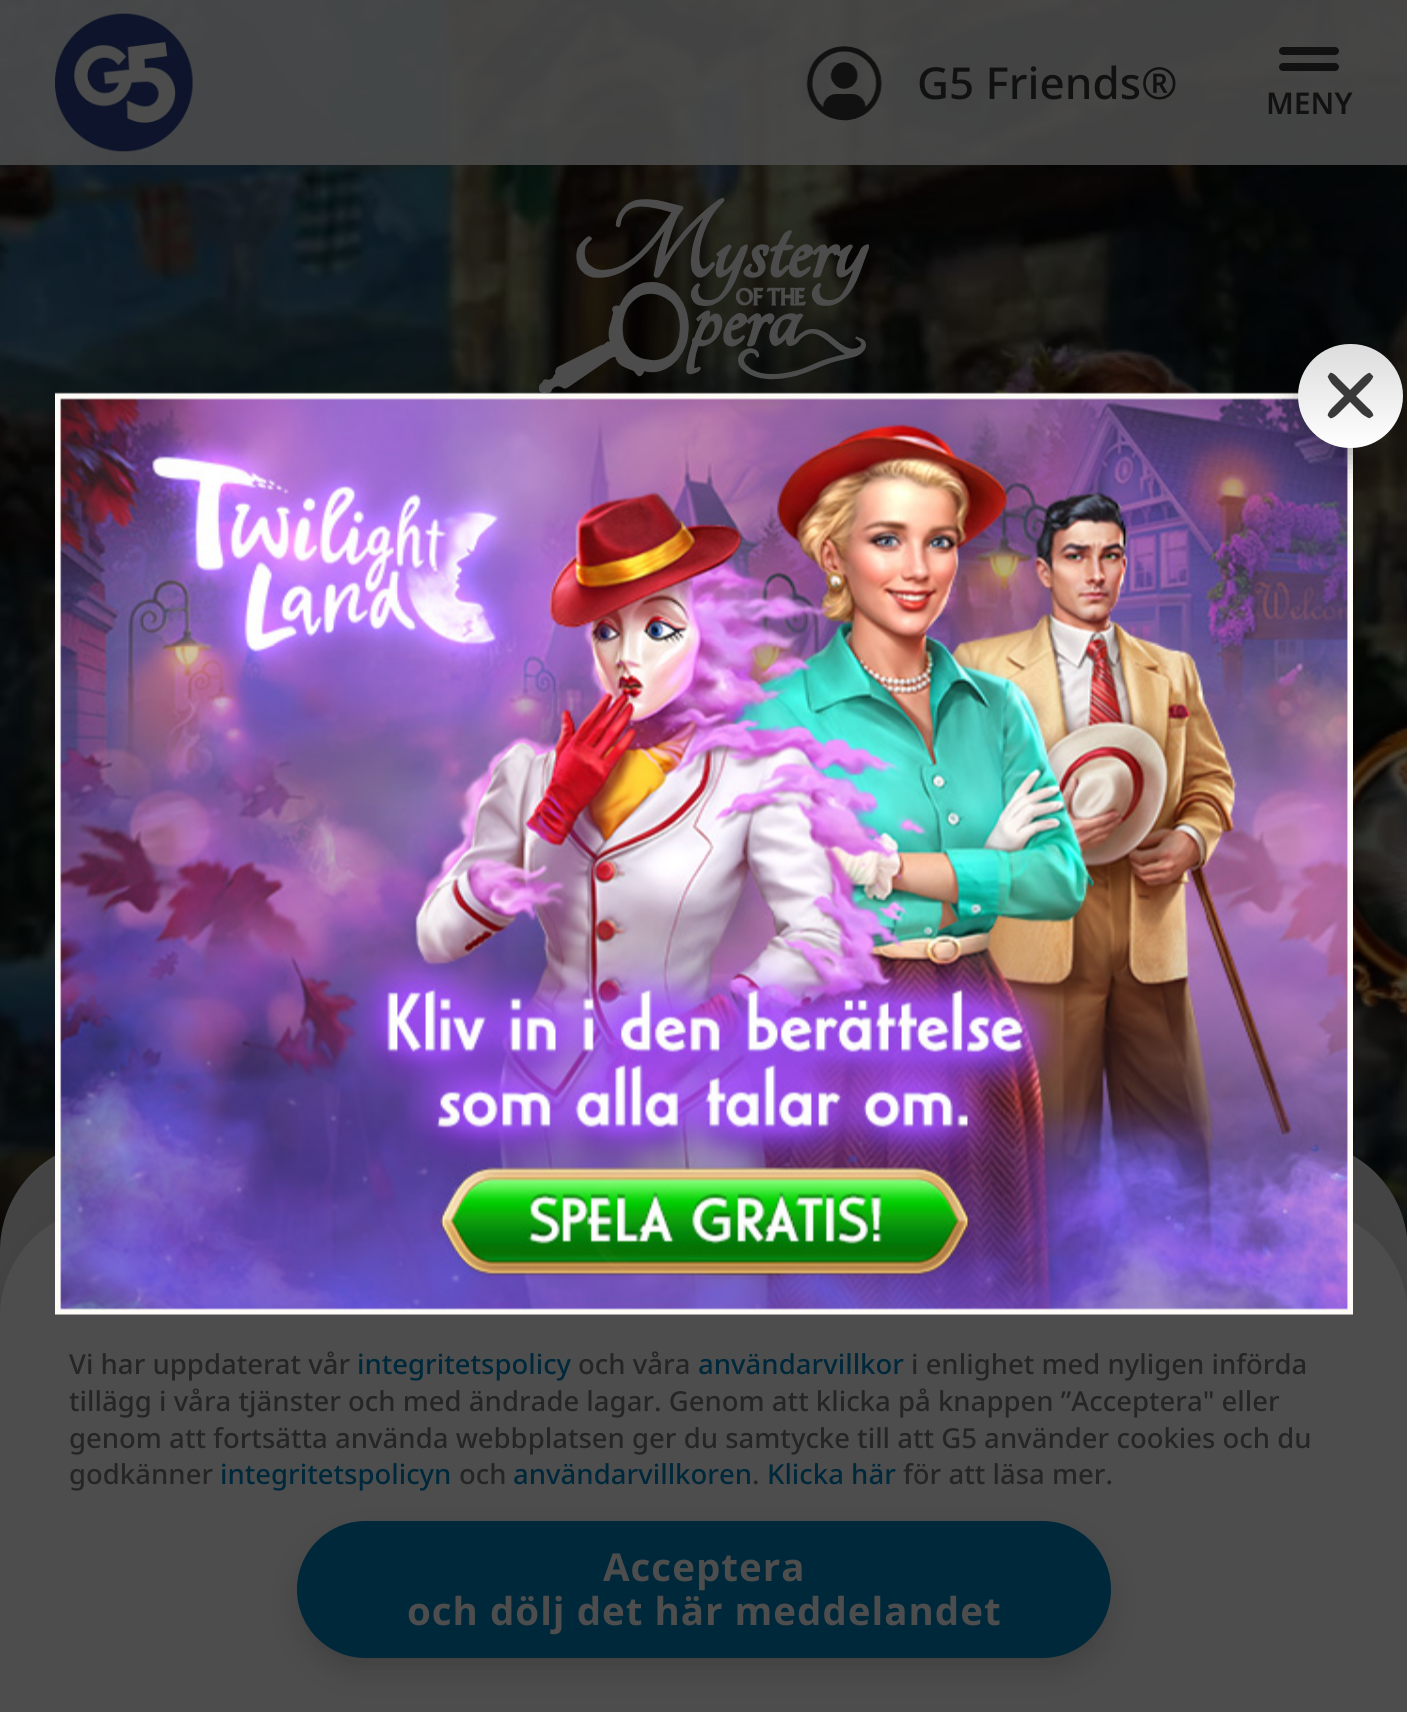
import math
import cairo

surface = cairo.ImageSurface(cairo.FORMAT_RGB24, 1407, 1712)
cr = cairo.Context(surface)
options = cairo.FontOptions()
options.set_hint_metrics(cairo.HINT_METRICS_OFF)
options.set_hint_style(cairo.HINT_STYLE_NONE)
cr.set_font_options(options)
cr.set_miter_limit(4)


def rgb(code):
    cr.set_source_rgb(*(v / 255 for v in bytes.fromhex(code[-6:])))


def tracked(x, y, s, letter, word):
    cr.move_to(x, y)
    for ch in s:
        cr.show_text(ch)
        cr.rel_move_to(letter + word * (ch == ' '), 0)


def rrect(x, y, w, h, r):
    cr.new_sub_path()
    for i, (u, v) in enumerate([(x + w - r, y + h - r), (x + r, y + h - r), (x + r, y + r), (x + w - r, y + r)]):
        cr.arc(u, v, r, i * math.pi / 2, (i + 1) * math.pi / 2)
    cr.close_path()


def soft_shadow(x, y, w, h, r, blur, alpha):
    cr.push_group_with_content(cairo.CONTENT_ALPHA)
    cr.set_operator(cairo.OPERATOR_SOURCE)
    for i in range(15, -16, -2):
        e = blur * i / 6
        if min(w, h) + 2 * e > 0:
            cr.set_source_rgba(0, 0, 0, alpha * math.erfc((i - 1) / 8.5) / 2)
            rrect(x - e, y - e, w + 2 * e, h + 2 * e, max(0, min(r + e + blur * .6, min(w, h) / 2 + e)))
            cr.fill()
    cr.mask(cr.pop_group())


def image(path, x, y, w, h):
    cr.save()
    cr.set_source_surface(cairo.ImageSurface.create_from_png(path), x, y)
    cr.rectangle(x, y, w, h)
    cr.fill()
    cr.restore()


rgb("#ffffff")
cr.paint()
image("img/1.png", 0, 0, 1407, 1251)
image("img/2.png", 513, 161, 378, 233)
image("img/3.png", 985, 341, 422, 716)
rgb("#494949")
cr.new_path()
cr.move_to(110, 1141)
cr.line_to(1298, 1141)
cr.curve_to(1359, 1141, 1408, 1190, 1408, 1251)
cr.line_to(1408, 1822)
cr.line_to(0, 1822)
cr.line_to(0, 1251)
cr.curve_to(0, 1190, 49, 1141, 110, 1141)
cr.close_path()
cr.fill()
rgb("#101112")
soft_shadow(0, 1180, 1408, 506, 110, 110, 0.22)
rgb("#4d4d4d")
cr.new_path()
cr.move_to(110, 1207)
cr.line_to(1298, 1207)
cr.curve_to(1359, 1207, 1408, 1256, 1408, 1317)
cr.line_to(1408, 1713)
cr.line_to(0, 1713)
cr.line_to(0, 1317)
cr.curve_to(0, 1256, 49, 1207, 110, 1207)
cr.close_path()
cr.fill()
image("img/4.png", 55, 392, 1298, 923)
rgb("#000000")
soft_shadow(1298, 358, 105, 104, 52, 14, 0.3)
gradient = cairo.LinearGradient(1350, 344, 1350, 448)
gradient.add_color_stop_rgba(0, 0.863, 0.863, 0.863, 1)
gradient.add_color_stop_rgba(1, 1, 1, 1, 1)
cr.set_source(gradient)
rrect(1298, 344, 105, 104, 52)
cr.fill()
rgb("#393939")
cr.new_path()
cr.move_to(1338, 378)
cr.line_to(1368, 408)
cr.curve_to(1372, 411, 1374, 415, 1373, 416)
cr.line_to(1370, 418)
cr.curve_to(1370, 419, 1366, 417, 1362, 414)
cr.line_to(1332, 384)
cr.curve_to(1329, 380, 1327, 376, 1328, 376)
cr.line_to(1330, 373)
cr.curve_to(1331, 372, 1335, 374, 1338, 378)
cr.close_path()
cr.fill()
cr.new_path()
cr.move_to(1368, 384)
cr.line_to(1338, 414)
cr.curve_to(1335, 417, 1331, 419, 1330, 418)
cr.line_to(1328, 416)
cr.curve_to(1327, 415, 1329, 411, 1332, 408)
cr.line_to(1362, 378)
cr.curve_to(1366, 374, 1370, 372, 1370, 373)
cr.line_to(1373, 376)
cr.curve_to(1374, 376, 1372, 380, 1368, 384)
cr.close_path()
cr.fill()
cr.set_source_rgba(0.302, 0.302, 0.302, 0.86)
cr.rectangle(0, 0, 1407, 165)
cr.fill()
image("img/5.png", 55, 13, 138, 139)
image("img/6.png", 806, 46, 76, 75)
rgb("#111111")
rrect(1279, 47, 60, 8, 4)
cr.fill()
rrect(1279, 63, 60, 8, 4)
cr.fill()
rgb("#252525")
soft_shadow(297, 1535, 814, 137, 68.5, 14, 0.3)
rgb("#00283b")
rrect(297, 1521, 814, 137, 68.5)
cr.fill()
cr.select_font_face("Noto Sans Medium")
cr.set_font_size(44)
rgb("#111111")
cr.move_to(917, 99)
cr.show_text("G5 Friends®")
cr.select_font_face("Noto Sans SemiBold")
cr.set_font_size(30)
cr.move_to(1266, 114)
cr.show_text("MENY")
cr.select_font_face("Noto Sans Medium")
cr.set_font_size(27.5)
rgb("#252525")
cr.move_to(69, 1374)
cr.show_text("Vi har uppdaterat vår")
rgb("#00283b")
cr.move_to(357, 1374)
cr.show_text("integritetspolicy")
rgb("#252525")
cr.move_to(578, 1374)
cr.show_text("och våra")
rgb("#00283b")
cr.move_to(698, 1374)
cr.show_text("användarvillkor")
rgb("#252525")
for x, y, s in [
    (911, 1374, "i enlighet med nyligen införda"),
    (69, 1411, "tillägg i våra tjänster och med ändrade lagar. Genom att klicka på knappen ”Acceptera\" eller"),
    (69, 1448, "genom att fortsätta använda webbplatsen ger du samtycke till att G5 använder cookies och du"),
    (69, 1484, "godkänner"),
]:
    cr.move_to(x, y)
    cr.show_text(s)
rgb("#00283b")
cr.move_to(220, 1484)
cr.show_text("integritetspolicyn")
rgb("#252525")
cr.move_to(459, 1484)
cr.show_text("och")
rgb("#00283b")
cr.move_to(513, 1484)
cr.show_text("användarvillkoren")
rgb("#252525")
cr.move_to(752, 1484)
cr.show_text(".")
rgb("#00283b")
cr.move_to(767, 1484)
cr.show_text("Klicka här")
rgb("#252525")
cr.move_to(903, 1484)
cr.show_text("för att läsa mer.")
cr.select_font_face("Noto Sans", cairo.FONT_SLANT_NORMAL, cairo.FONT_WEIGHT_BOLD)
cr.set_font_size(38.5)
rgb("#4d4d4d")
tracked(603, 1581, "Acceptera", 1, 0)
tracked(407, 1625, "och dölj det här meddelandet", 1, 0)
surface.write_to_png("page.png")
